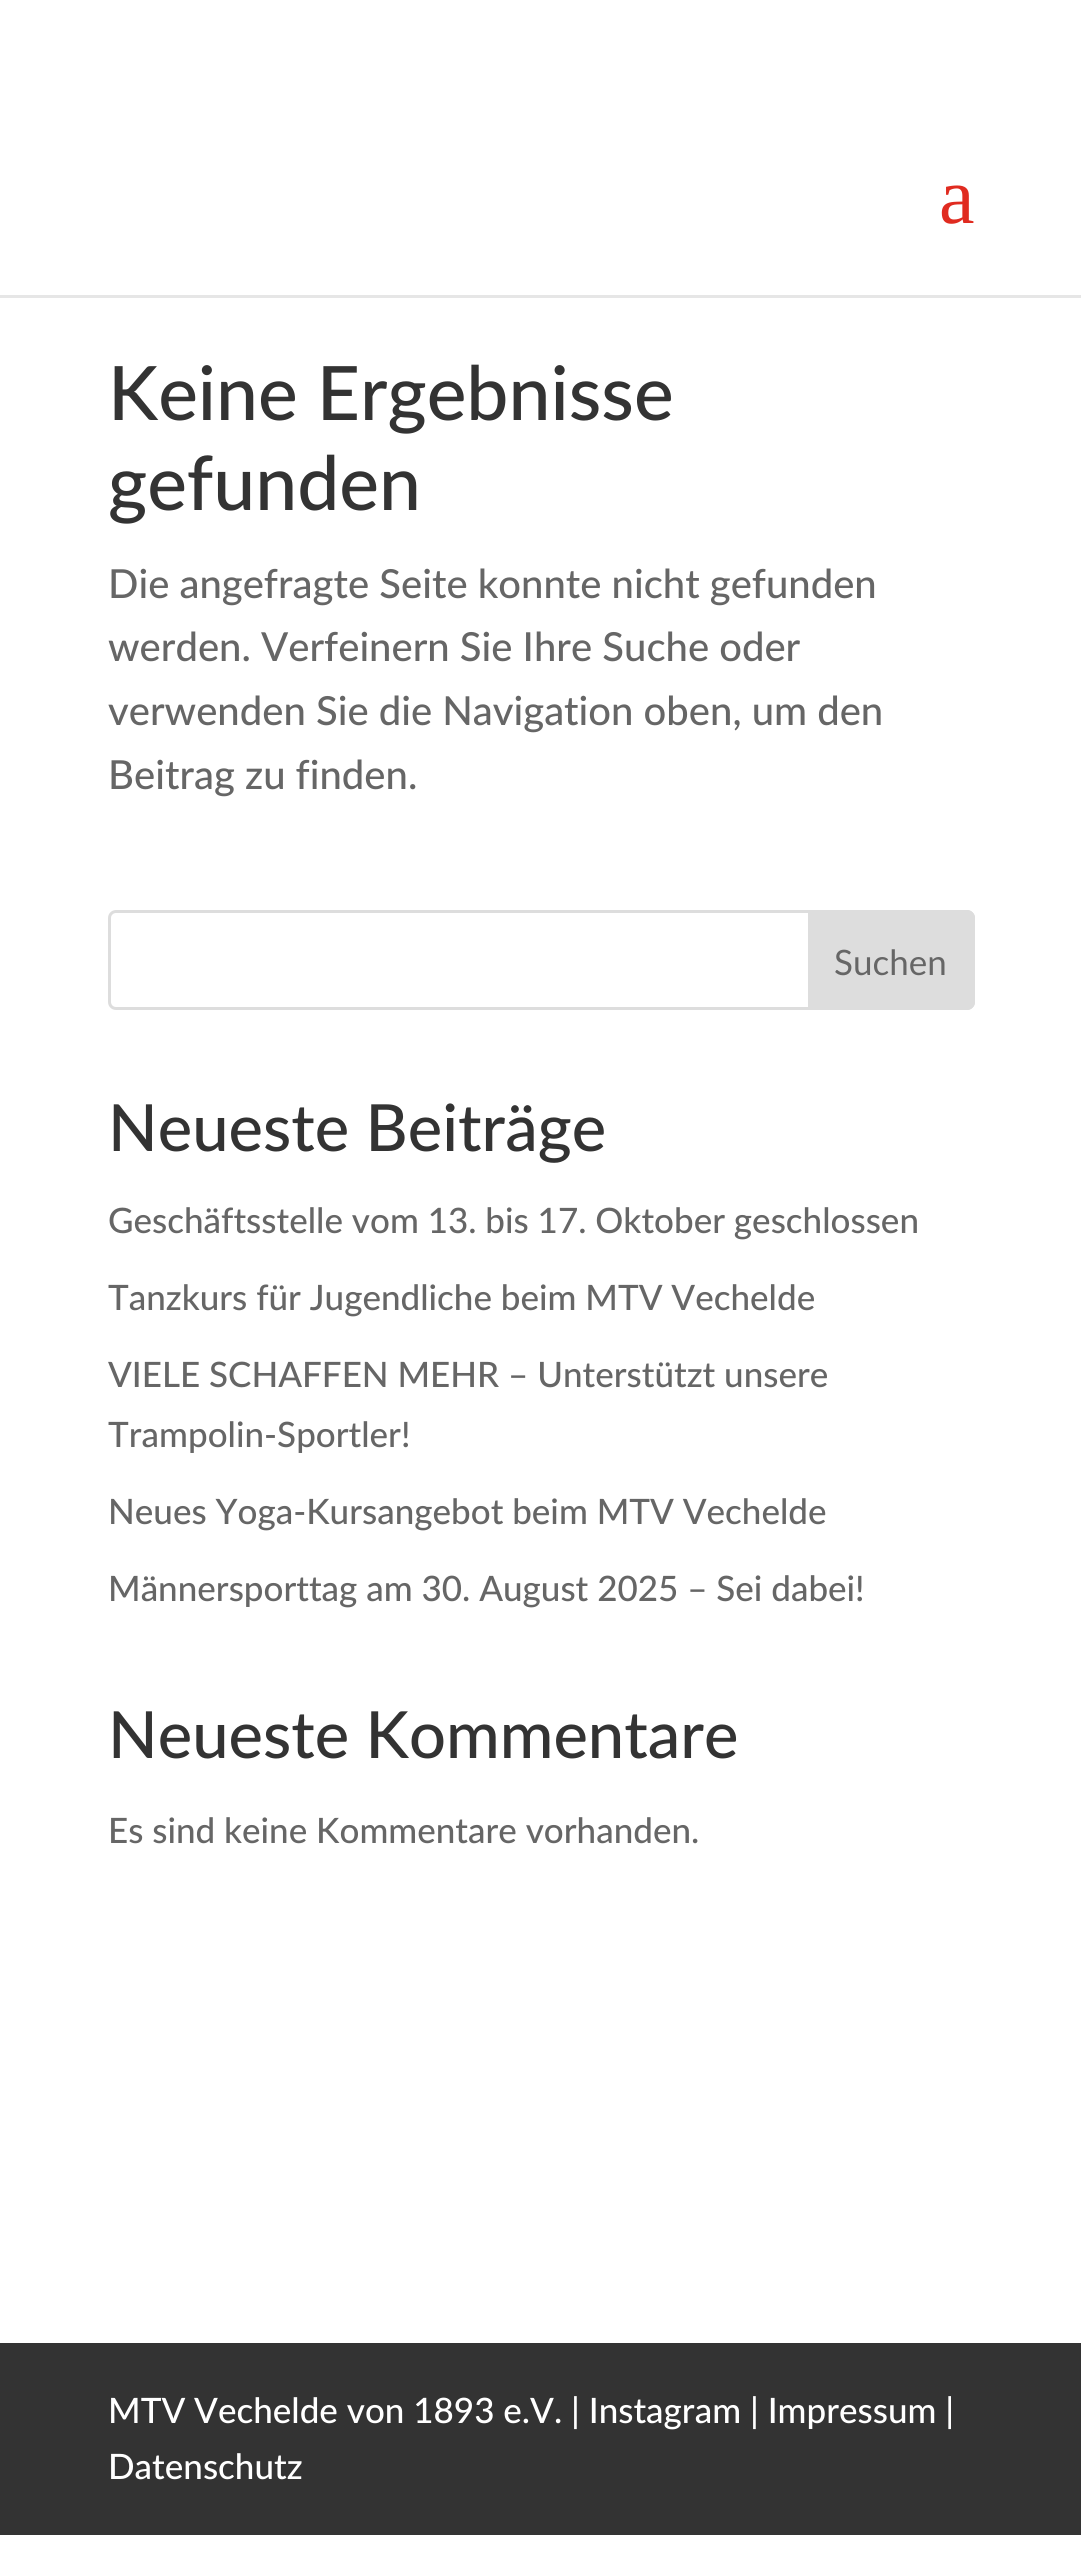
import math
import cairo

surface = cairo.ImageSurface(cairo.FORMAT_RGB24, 1081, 2569)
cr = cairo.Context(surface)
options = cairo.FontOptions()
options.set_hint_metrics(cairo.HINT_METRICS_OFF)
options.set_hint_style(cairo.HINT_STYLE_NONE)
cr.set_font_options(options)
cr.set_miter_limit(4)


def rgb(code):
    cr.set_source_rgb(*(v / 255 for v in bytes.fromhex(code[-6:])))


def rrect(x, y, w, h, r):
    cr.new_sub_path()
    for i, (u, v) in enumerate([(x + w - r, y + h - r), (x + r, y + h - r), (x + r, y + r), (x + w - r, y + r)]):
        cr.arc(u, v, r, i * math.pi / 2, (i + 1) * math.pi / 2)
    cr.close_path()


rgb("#ffffff")
cr.paint()
rgb("#e6e6e6")
cr.new_path()
cr.move_to(0, 295)
cr.line_to(0, 298)
cr.line_to(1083, 298)
cr.line_to(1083, 98)
cr.line_to(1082, 98)
cr.line_to(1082, 295)
cr.close_path()
cr.fill()
rrect(109.5, 911.5, 864, 97, 6.5)
rgb("#dddddd")
cr.set_line_width(3)
cr.stroke()
cr.new_path()
cr.move_to(809.5, 911.5)
cr.line_to(967, 911.5)
cr.curve_to(970.5, 911.5, 973.5, 914.5, 973.5, 918)
cr.line_to(973.5, 1002)
cr.curve_to(973.5, 1005.5, 970.5, 1008.5, 967, 1008.5)
cr.line_to(809.5, 1008.5)
cr.close_path()
cr.fill_preserve()
cr.stroke()
rgb("#333333")
cr.rectangle(0, 2343, 1081, 192)
cr.fill()
cr.select_font_face("Liberation Serif")
cr.set_font_size(80)
rgb("#e02b20")
cr.move_to(939, 223)
cr.show_text("a")
cr.select_font_face("Lato Medium")
cr.set_font_size(75)
rgb("#333333")
cr.move_to(108, 420)
cr.show_text("Keine Ergebnisse")
cr.move_to(108, 510)
cr.show_text("gefunden")
cr.set_font_size(40)
rgb("#666666")
for x, y, s in [
    (108, 598, "Die angefragte Seite konnte nicht gefunden"),
    (108, 661, "werden. Verfeinern Sie Ihre Suche oder"),
    (108, 725, "verwenden Sie die Navigation oben, um den"),
    (108, 789, "Beitrag zu finden."),
]:
    cr.move_to(x, y)
    cr.show_text(s)
cr.select_font_face("Lato")
cr.set_font_size(35)
cr.move_to(834, 975)
cr.show_text("Suchen")
cr.select_font_face("Lato Medium")
cr.set_font_size(65)
rgb("#333333")
cr.move_to(108, 1151)
cr.show_text("Neueste Beiträge")
cr.set_font_size(35)
rgb("#666666")
for x, y, s in [
    (108, 1233, "Geschäftsstelle vom 13. bis 17. Oktober geschlossen"),
    (108, 1310, "Tanzkurs für Jugendliche beim MTV Vechelde"),
    (108, 1387, "VIELE SCHAFFEN MEHR – Unterstützt unsere"),
    (108, 1447, "Trampolin-Sportler!"),
    (108, 1524, "Neues Yoga-Kursangebot beim MTV Vechelde"),
    (108, 1601, "Männersporttag am 30. August 2025 – Sei dabei!"),
]:
    cr.move_to(x, y)
    cr.show_text(s)
cr.set_font_size(65)
rgb("#333333")
cr.move_to(108, 1758)
cr.show_text("Neueste Kommentare")
cr.set_font_size(35)
rgb("#666666")
cr.move_to(108, 1843)
cr.show_text("Es sind keine Kommentare vorhanden.")
rgb("#ffffff")
cr.move_to(108, 2423)
cr.show_text("MTV Vechelde von 1893 e.V. | Instagram | Impressum |")
cr.move_to(108, 2479)
cr.show_text("Datenschutz")
surface.write_to_png("page.png")
